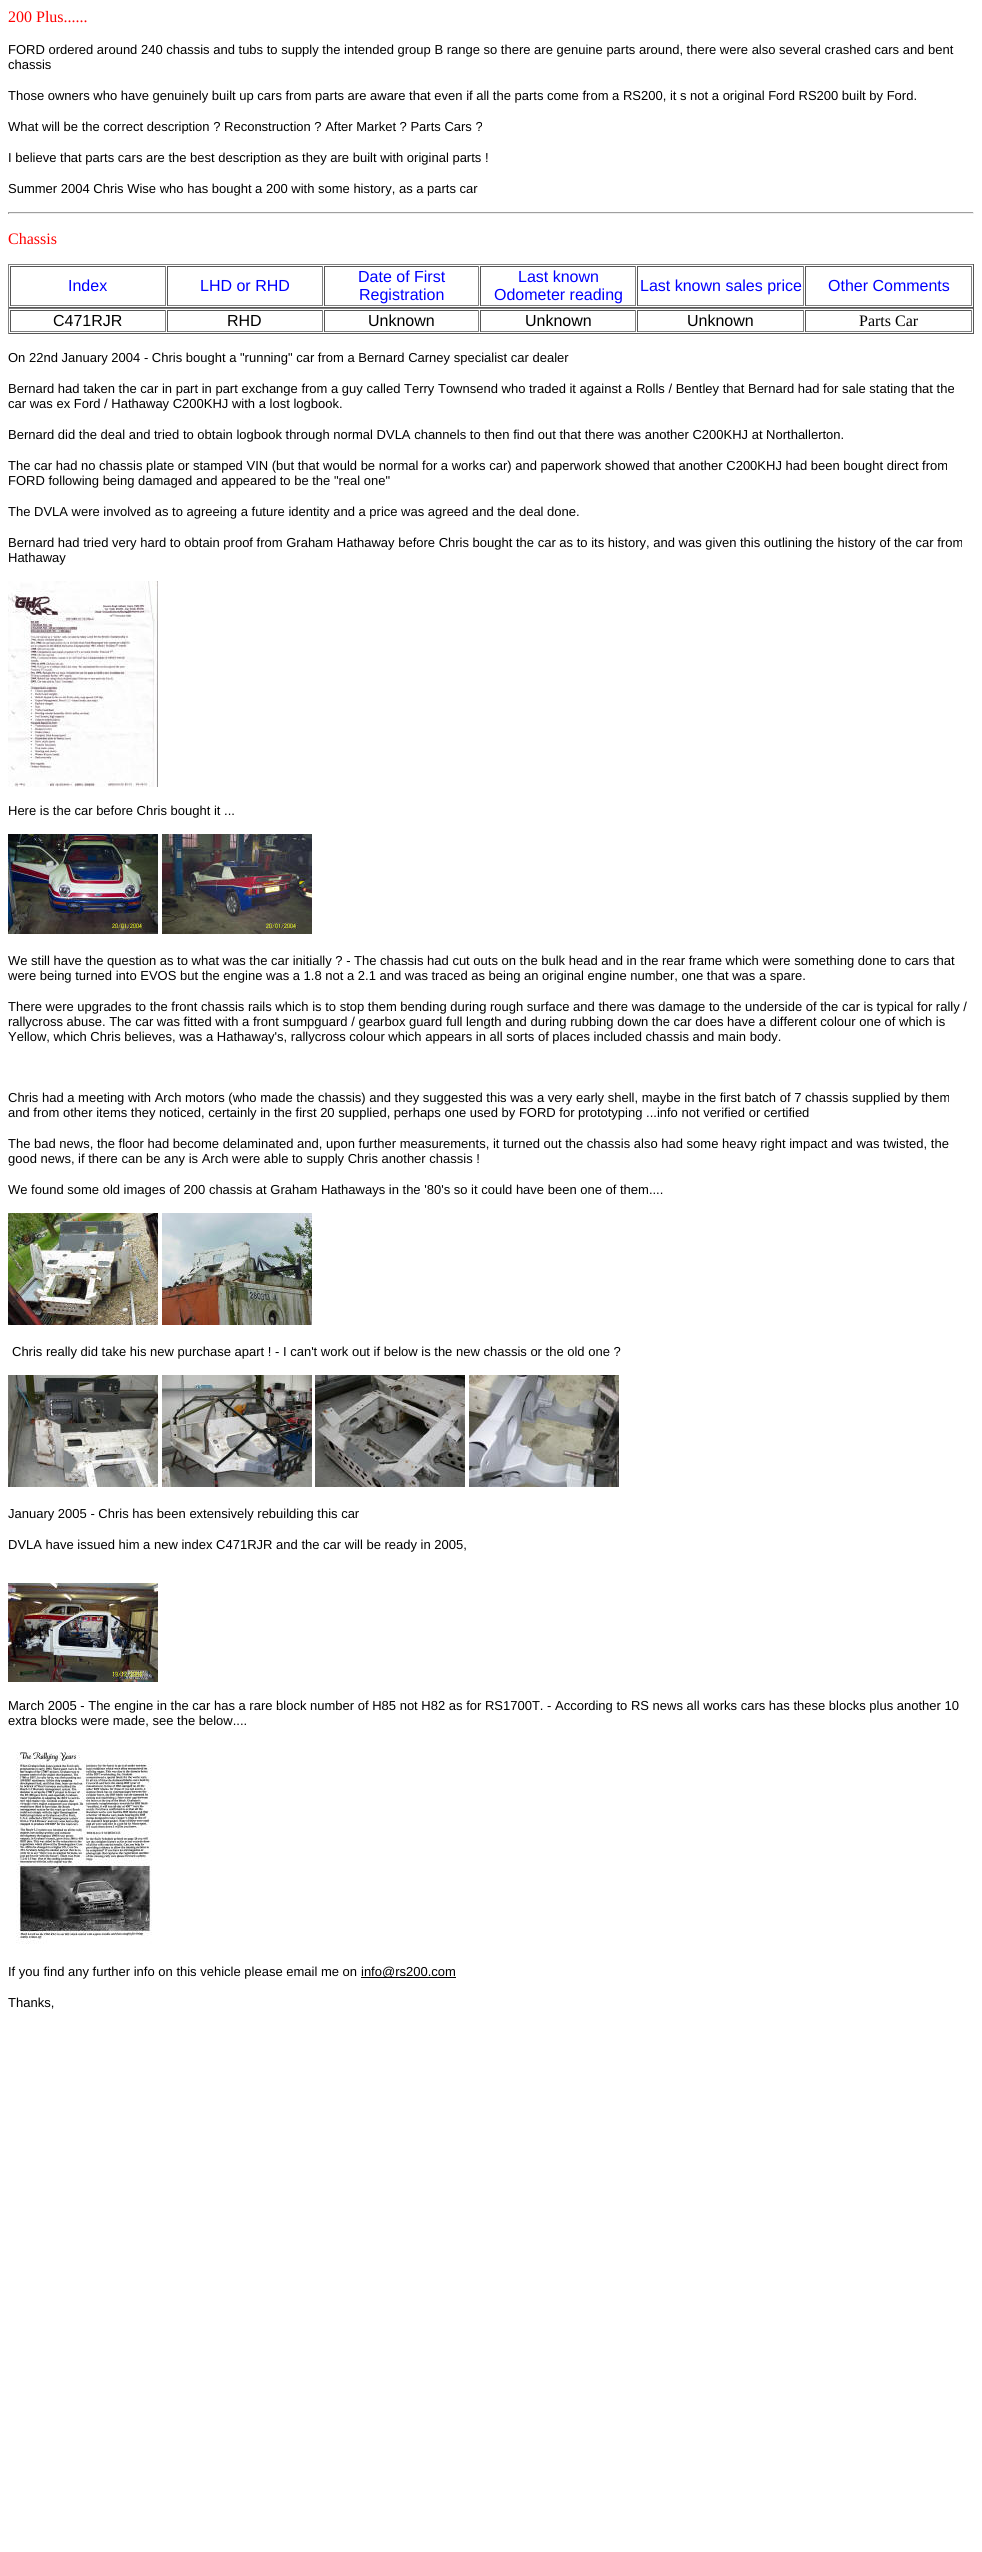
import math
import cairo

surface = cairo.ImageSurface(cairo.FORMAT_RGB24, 982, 2552)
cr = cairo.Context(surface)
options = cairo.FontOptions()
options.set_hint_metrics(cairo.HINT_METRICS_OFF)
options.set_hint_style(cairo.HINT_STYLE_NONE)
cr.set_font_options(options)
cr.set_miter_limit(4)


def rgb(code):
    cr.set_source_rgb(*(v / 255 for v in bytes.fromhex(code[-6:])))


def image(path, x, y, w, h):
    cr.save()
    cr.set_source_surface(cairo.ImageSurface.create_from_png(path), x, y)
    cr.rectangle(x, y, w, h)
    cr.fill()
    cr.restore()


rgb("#ffffff")
cr.paint()
for x, y, w, h, color in [
    (8, 212, 966, 1, "#9f9f9f"),
    (973, 212, 1, 2, "#eeeeee"),
    (8, 213, 966, 1, "#eeeeee"),
    (8, 212, 1, 2, "#9f9f9f"),
    (8, 264, 966, 1, "#808080"),
    (973, 264, 1, 44, "#555555"),
    (8, 307, 966, 1, "#555555"),
    (8, 264, 1, 44, "#808080"),
    (10, 266, 156, 1, "#555555"),
    (165, 266, 1, 40, "#808080"),
    (10, 305, 156, 1, "#808080"),
    (10, 266, 1, 40, "#555555"),
    (167, 266, 156, 1, "#555555"),
    (322, 266, 1, 40, "#808080"),
    (167, 305, 156, 1, "#808080"),
    (167, 266, 1, 40, "#555555"),
    (324, 266, 155, 1, "#555555"),
    (478, 266, 1, 40, "#808080"),
    (324, 305, 155, 1, "#808080"),
    (324, 266, 1, 40, "#555555"),
    (480, 266, 156, 1, "#555555"),
    (635, 266, 1, 40, "#808080"),
    (480, 305, 156, 1, "#808080"),
    (480, 266, 1, 40, "#555555"),
    (637, 266, 167, 1, "#555555"),
    (803, 266, 1, 40, "#808080"),
    (637, 305, 167, 1, "#808080"),
    (637, 266, 1, 40, "#555555"),
    (805, 266, 167, 1, "#555555"),
    (971, 266, 1, 40, "#808080"),
    (805, 305, 167, 1, "#808080"),
    (805, 266, 1, 40, "#555555"),
    (8, 308, 966, 1, "#808080"),
    (973, 308, 1, 26, "#555555"),
    (8, 333, 966, 1, "#555555"),
    (8, 308, 1, 26, "#808080"),
    (10, 310, 156, 1, "#555555"),
    (165, 310, 1, 22, "#808080"),
    (10, 331, 156, 1, "#808080"),
    (10, 310, 1, 22, "#555555"),
    (167, 310, 156, 1, "#555555"),
    (322, 310, 1, 22, "#808080"),
    (167, 331, 156, 1, "#808080"),
    (167, 310, 1, 22, "#555555"),
    (324, 310, 155, 1, "#555555"),
    (478, 310, 1, 22, "#808080"),
    (324, 331, 155, 1, "#808080"),
    (324, 310, 1, 22, "#555555"),
    (480, 310, 156, 1, "#555555"),
    (635, 310, 1, 22, "#808080"),
    (480, 331, 156, 1, "#808080"),
    (480, 310, 1, 22, "#555555"),
    (637, 310, 167, 1, "#555555"),
    (803, 310, 1, 22, "#808080"),
    (637, 331, 167, 1, "#808080"),
    (637, 310, 1, 22, "#555555"),
    (805, 310, 167, 1, "#555555"),
    (971, 310, 1, 22, "#808080"),
    (805, 331, 167, 1, "#808080"),
    (805, 310, 1, 22, "#555555"),
]:
    rgb(color)
    cr.rectangle(x, y, w, h)
    cr.fill()
image("img/1.png", 8, 581, 150, 206)
image("img/2.png", 8, 834, 150, 100)
image("img/3.png", 162, 834, 150, 100)
image("img/4.png", 8, 1213, 150, 112)
image("img/5.png", 162, 1213, 150, 112)
image("img/6.png", 8, 1375, 150, 112)
image("img/7.png", 162, 1375, 150, 112)
image("img/8.png", 315, 1375, 150, 112)
image("img/9.png", 469, 1375, 150, 112)
image("img/10.png", 8, 1583, 150, 99)
image("img/11.png", 16, 1752, 136, 192)
rgb("#000000")
cr.rectangle(361, 1977, 95, 1)
cr.fill()
cr.select_font_face("Liberation Serif")
cr.set_font_size(16)
rgb("#ff0000")
cr.move_to(8, 22)
cr.show_text("200 Plus......")
cr.select_font_face("Liberation Sans")
cr.set_font_size(13)
rgb("#000000")
for x, y, s in [
    (8, 54, "FORD ordered around 240 chassis and tubs to supply the intended group B range so there are genuine parts around, there were also several crashed cars and bent"),
    (8, 69, "chassis"),
    (8, 100, "Those owners who have genuinely built up cars from parts are aware that even if all the parts come from a RS200, it s not a original Ford RS200 built by Ford."),
    (8, 131, "What will be the correct description ? Reconstruction ? After Market ? Parts Cars ?"),
    (8, 162, "I believe that parts cars are the best description as they are built with original parts !"),
    (8, 193, "Summer 2004 Chris Wise who has bought a 200 with some history, as a parts car"),
]:
    cr.move_to(x, y)
    cr.show_text(s)
cr.select_font_face("Liberation Serif")
cr.set_font_size(16)
rgb("#ff0000")
cr.move_to(8, 244)
cr.show_text("Chassis")
cr.select_font_face("Liberation Sans")
rgb("#0000ff")
for x, y, s in [
    (68, 291, "Index"),
    (200, 291, "LHD or RHD"),
    (358, 282, "Date of First"),
    (359, 300, "Registration"),
    (518, 282, "Last known"),
    (494, 300, "Odometer reading"),
    (640, 291, "Last known sales price"),
    (828, 291, "Other Comments"),
]:
    cr.move_to(x, y)
    cr.show_text(s)
rgb("#000000")
for x, y, s in [
    (53, 326, "C471RJR"),
    (227, 326, "RHD"),
    (368, 326, "Unknown"),
    (525, 326, "Unknown"),
    (687, 326, "Unknown"),
]:
    cr.move_to(x, y)
    cr.show_text(s)
cr.select_font_face("Liberation Serif")
cr.move_to(859, 326)
cr.show_text("Parts Car")
cr.select_font_face("Liberation Sans")
cr.set_font_size(13)
for x, y, s in [
    (8, 362, "On 22nd January 2004 - Chris bought a \"running\" car from a Bernard Carney specialist car dealer"),
    (8, 393, "Bernard had taken the car in part in part exchange from a guy called Terry Townsend who traded it against a Rolls / Bentley that Bernard had for sale stating that the"),
    (8, 408, "car was ex Ford / Hathaway C200KHJ with a lost logbook."),
    (8, 439, "Bernard did the deal and tried to obtain logbook through normal DVLA channels to then find out that there was another C200KHJ at Northallerton."),
    (8, 470, "The car had no chassis plate or stamped VIN (but that would be normal for a works car) and paperwork showed that another C200KHJ had been bought direct from"),
    (8, 485, "FORD following being damaged and appeared to be the \"real one\""),
    (8, 516, "The DVLA were involved as to agreeing a future identity and a price was agreed and the deal done."),
    (8, 547, "Bernard had tried very hard to obtain proof from Graham Hathaway before Chris bought the car as to its history, and was given this outlining the history of the car from"),
    (8, 562, "Hathaway"),
    (8, 815, "Here is the car before Chris bought it ..."),
    (8, 965, "We still have the question as to what was the car initially ? - The chassis had cut outs on the bulk head and in the rear frame which were something done to cars that"),
    (8, 980, "were being turned into EVOS but the engine was a 1.8 not a 2.1 and was traced as being an original engine number, one that was a spare."),
    (8, 1011, "There were upgrades to the front chassis rails which is to stop them bending during rough surface and there was damage to the underside of the car is typical for rally /"),
    (8, 1026, "rallycross abuse. The car was fitted with a front sumpguard / gearbox guard full length and during rubbing down the car does have a different colour one of which is"),
    (8, 1041, "Yellow, which Chris believes, was a Hathaway's, rallycross colour which appears in all sorts of places included chassis and main body."),
    (8, 1102, "Chris had a meeting with Arch motors (who made the chassis) and they suggested this was a very early shell, maybe in the first batch of 7 chassis supplied by them"),
    (8, 1117, "and from other items they noticed, certainly in the first 20 supplied, perhaps one used by FORD for prototyping ...info not verified or certified"),
    (8, 1148, "The bad news, the floor had become delaminated and, upon further measurements, it turned out the chassis also had some heavy right impact and was twisted, the"),
    (8, 1163, "good news, if there can be any is Arch were able to supply Chris another chassis !"),
    (8, 1194, "We found some old images of 200 chassis at Graham Hathaways in the '80's so it could have been one of them...."),
    (12, 1356, "Chris really did take his new purchase apart ! - I can't work out if below is the new chassis or the old one ?"),
    (8, 1518, "January 2005 - Chris has been extensively rebuilding this car"),
    (8, 1549, "DVLA have issued him a new index C471RJR and the car will be ready in 2005,"),
    (8, 1710, "March 2005 - The engine in the car has a rare block number of H85 not H82 as for RS1700T. - According to RS news all works cars has these blocks plus another 10"),
    (8, 1725, "extra blocks were made, see the below...."),
    (8, 1976, "If you find any further info on this vehicle please email me on"),
    (361, 1976, "info@rs200.com"),
    (8, 2007, "Thanks,"),
]:
    cr.move_to(x, y)
    cr.show_text(s)
surface.write_to_png("page.png")
